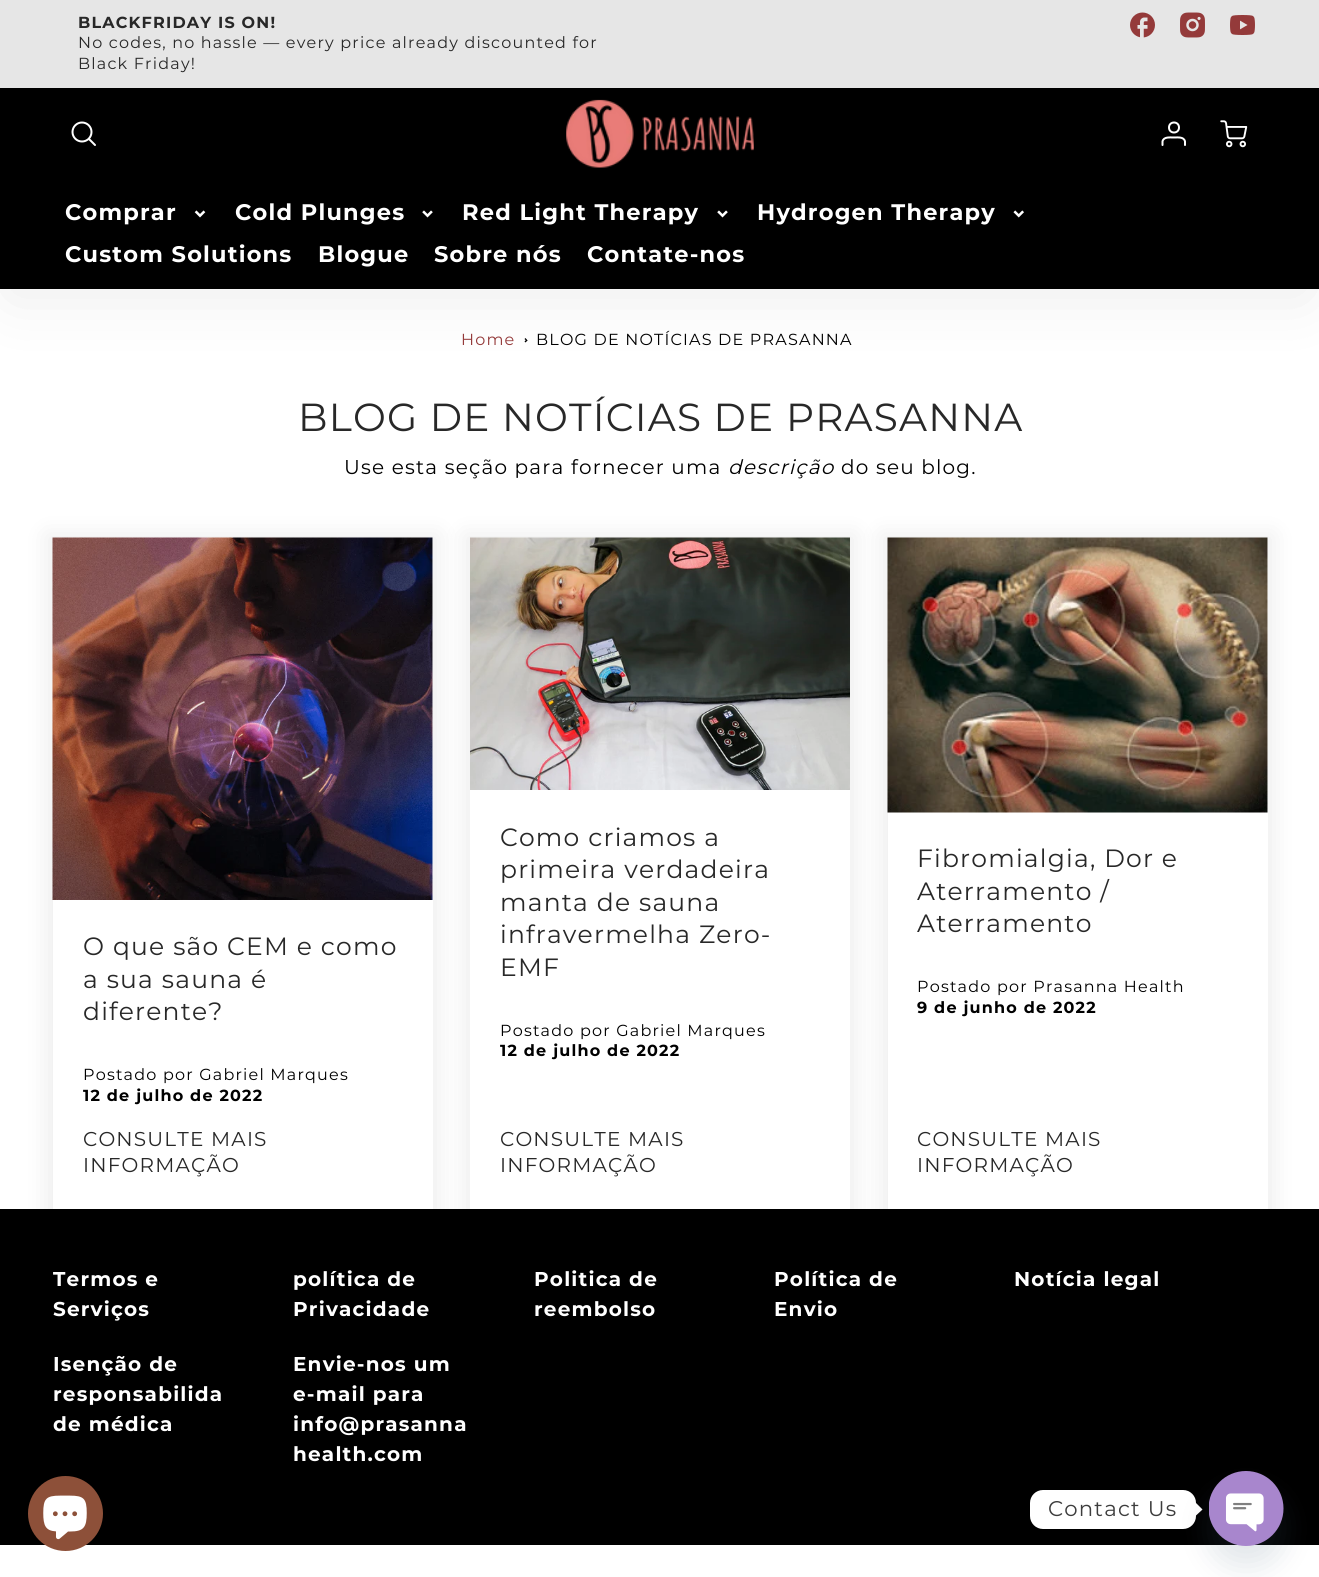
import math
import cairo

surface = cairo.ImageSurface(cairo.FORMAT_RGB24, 1319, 1577)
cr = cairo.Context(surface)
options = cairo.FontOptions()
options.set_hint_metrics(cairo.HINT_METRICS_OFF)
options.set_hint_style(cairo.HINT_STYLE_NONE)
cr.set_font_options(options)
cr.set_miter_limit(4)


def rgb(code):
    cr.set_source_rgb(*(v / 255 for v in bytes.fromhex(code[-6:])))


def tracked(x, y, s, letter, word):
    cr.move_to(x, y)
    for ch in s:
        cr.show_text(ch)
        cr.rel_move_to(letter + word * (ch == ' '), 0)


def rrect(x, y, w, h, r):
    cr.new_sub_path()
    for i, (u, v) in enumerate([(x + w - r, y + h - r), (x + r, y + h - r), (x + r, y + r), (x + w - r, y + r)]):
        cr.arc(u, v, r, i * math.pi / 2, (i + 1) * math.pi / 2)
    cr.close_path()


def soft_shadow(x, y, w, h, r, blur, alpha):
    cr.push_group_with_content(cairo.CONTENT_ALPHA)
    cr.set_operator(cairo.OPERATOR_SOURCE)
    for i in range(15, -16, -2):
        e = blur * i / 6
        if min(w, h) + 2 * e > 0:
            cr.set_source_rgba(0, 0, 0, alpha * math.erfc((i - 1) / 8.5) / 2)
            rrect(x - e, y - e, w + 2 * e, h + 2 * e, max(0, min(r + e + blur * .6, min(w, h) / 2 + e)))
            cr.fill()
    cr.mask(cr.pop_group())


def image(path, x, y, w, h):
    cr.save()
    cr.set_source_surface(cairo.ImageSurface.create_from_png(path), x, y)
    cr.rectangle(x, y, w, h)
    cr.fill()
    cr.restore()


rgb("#ffffff")
cr.paint()
rgb("#000000")
cr.new_path()
cr.move_to(525.5, 338)
cr.line_to(527.5, 340.5)
cr.line_to(526.5, 341)
cr.line_to(524.5, 339)
cr.close_path()
cr.fill()
cr.new_path()
cr.move_to(526.5, 339.5)
cr.line_to(527.5, 340.5)
cr.line_to(525.5, 342.5)
cr.line_to(524.5, 341.5)
cr.close_path()
cr.fill()
rgb("#292929")
soft_shadow(11, 118, 1295, 176, 0, 31, 0.1)
rgb("#e6e6e6")
cr.rectangle(0, 0, 1319, 88)
cr.fill()
image("img/1.png", 1130, 12, 25, 26)
image("img/2.png", 1180, 12, 25, 26)
image("img/3.png", 1230, 15, 25, 20)
rgb("#000000")
cr.rectangle(0, 88, 1319, 201)
cr.fill()
cr.arc(82, 132, 9.5, 0, 2 * math.pi)
rgb("#ffffff")
cr.stroke()
cr.new_path()
cr.move_to(95, 145)
cr.line_to(89, 139)
cr.set_line_cap(cairo.LINE_CAP_ROUND)
cr.set_line_join(cairo.LINE_JOIN_ROUND)
cr.stroke()
image("img/4.png", 566, 99, 188, 69)
cr.arc(1174, 127.5, 5, 0, 2 * math.pi)
cr.set_line_cap(cairo.LINE_CAP_BUTT)
cr.set_line_join(cairo.LINE_JOIN_MITER)
cr.stroke()
cr.new_path()
cr.move_to(1185, 145)
cr.line_to(1185, 141.5)
cr.curve_to(1184, 136.5, 1177.5, 137.5, 1174, 137.5)
cr.curve_to(1170, 137.5, 1163.5, 136.5, 1162.5, 141.5)
cr.line_to(1162.5, 145)
cr.set_line_cap(cairo.LINE_CAP_ROUND)
cr.set_line_join(cairo.LINE_JOIN_ROUND)
cr.stroke()
image("img/5.png", 1220, 120, 28, 28)
image("img/6.png", 194, 210, 12, 8)
image("img/7.png", 422, 210, 11, 8)
image("img/7.png", 717, 210, 11, 8)
image("img/8.png", 1013, 210, 11, 8)
rgb("#000000")
cr.rectangle(0, 1209, 1319, 336)
cr.fill()
rgb("#000000")
soft_shadow(46, 534, 393, 684, 0, 12, 0.07)
rgb("#ffffff")
cr.rectangle(53, 538, 380, 671)
cr.fill()
image("img/9.png", 52, 537, 381, 363)
rgb("#000000")
soft_shadow(464, 534, 392, 684, 0, 12, 0.07)
rgb("#ffffff")
cr.rectangle(470, 790, 380, 419)
cr.fill()
image("img/10.png", 470, 537, 380, 253)
rgb("#000000")
soft_shadow(881, 534, 393, 684, 0, 12, 0.07)
rgb("#ffffff")
cr.rectangle(888, 538, 380, 671)
cr.fill()
image("img/11.png", 887, 537, 381, 276)
rgb("#8d5039")
cr.arc(65.5, 1513.5, 37.5, 0, 2 * math.pi)
cr.fill()
image("img/12.png", 43, 1495, 44, 45)
rgb("#ffffff")
rrect(1030, 1490, 166, 39, 13)
cr.fill()
cr.new_path()
cr.move_to(1196, 1515.5)
cr.line_to(1196, 1503)
cr.line_to(1202.5, 1509.5)
cr.close_path()
cr.fill()
rgb("#49687e")
soft_shadow(1209, 1491, 75, 75, 37.5, 15, 0.16)
image("img/13.png", 1209, 1471, 75, 75)
cr.select_font_face("Montserrat", cairo.FONT_SLANT_NORMAL, cairo.FONT_WEIGHT_BOLD)
cr.set_font_size(16)
rgb("#282828")
tracked(78, 28, "BLACKFRIDAY IS ON!", 1.2, 0)
cr.select_font_face("Montserrat")
tracked(78, 48, "No codes, no hassle — every price already discounted for", 1.2, 0)
tracked(78, 69, "Black Friday!", 1.2, 0)
cr.select_font_face("Montserrat", cairo.FONT_SLANT_NORMAL, cairo.FONT_WEIGHT_BOLD)
cr.set_font_size(22.5)
rgb("#ffffff")
for x, y, s in [
    (65, 220, "Comprar"),
    (235, 220, "Cold Plunges"),
    (462, 220, "Red Light Therapy"),
    (757, 220, "Hydrogen Therapy"),
    (65, 262, "Custom Solutions"),
    (318, 262, "Blogue"),
    (434, 262, "Sobre nós"),
    (587, 262, "Contate-nos"),
]:
    tracked(x, y, s, 1.2, 0)
cr.select_font_face("Montserrat")
cr.set_font_size(16)
rgb("#943a3a")
tracked(461, 345, "Home", 1.2, 0)
rgb("#000000")
tracked(536, 345, "BLOG DE NOTÍCIAS DE PRASANNA", 1.2, 0)
cr.set_font_size(39.1)
rgb("#282828")
tracked(298, 431, "BLOG DE NOTÍCIAS DE PRASANNA", 1.2, 0)
cr.set_font_size(20)
rgb("#000000")
tracked(344, 474, "Use esta seção para fornecer uma", 1.2, 0)
cr.select_font_face("Montserrat", cairo.FONT_SLANT_ITALIC)
tracked(728, 474, "descrição", 1.2, 0)
cr.select_font_face("Montserrat")
tracked(841, 474, "do seu blog.", 1.2, 0)
cr.set_font_size(25)
rgb("#282828")
for x, y, s in [
    (83, 955, "O que são CEM e como"),
    (83, 988, "a sua sauna é"),
    (83, 1020, "diferente?"),
]:
    tracked(x, y, s, 1.2, 0)
cr.set_font_size(16)
rgb("#000000")
tracked(83, 1080, "Postado por Gabriel Marques", 1.2, 0)
cr.select_font_face("Montserrat", cairo.FONT_SLANT_NORMAL, cairo.FONT_WEIGHT_BOLD)
tracked(83, 1101, "12 de julho de 2022", 1.2, 0)
cr.select_font_face("Montserrat")
cr.set_font_size(20)
rgb("#282828")
tracked(83, 1146, "CONSULTE MAIS", 1.2, 0)
tracked(83, 1172, "INFORMAÇÃO", 1.2, 0)
cr.set_font_size(25)
for x, y, s in [
    (500, 846, "Como criamos a"),
    (500, 878, "primeira verdadeira"),
    (500, 911, "manta de sauna"),
    (500, 943, "infravermelha Zero-"),
    (500, 976, "EMF"),
]:
    tracked(x, y, s, 1.2, 0)
cr.set_font_size(16)
rgb("#000000")
tracked(500, 1036, "Postado por Gabriel Marques", 1.2, 0)
cr.select_font_face("Montserrat", cairo.FONT_SLANT_NORMAL, cairo.FONT_WEIGHT_BOLD)
tracked(500, 1056, "12 de julho de 2022", 1.2, 0)
cr.select_font_face("Montserrat")
cr.set_font_size(20)
rgb("#282828")
tracked(500, 1146, "CONSULTE MAIS", 1.2, 0)
tracked(500, 1172, "INFORMAÇÃO", 1.2, 0)
cr.set_font_size(25)
for x, y, s in [
    (917, 867, "Fibromialgia, Dor e"),
    (917, 900, "Aterramento /"),
    (917, 932, "Aterramento"),
]:
    tracked(x, y, s, 1.2, 0)
cr.set_font_size(16)
rgb("#000000")
tracked(917, 992, "Postado por Prasanna Health", 1.2, 0)
cr.select_font_face("Montserrat", cairo.FONT_SLANT_NORMAL, cairo.FONT_WEIGHT_BOLD)
tracked(917, 1013, "9 de junho de 2022", 1.2, 0)
cr.select_font_face("Montserrat")
cr.set_font_size(20)
rgb("#282828")
tracked(917, 1146, "CONSULTE MAIS", 1.2, 0)
tracked(917, 1172, "INFORMAÇÃO", 1.2, 0)
cr.select_font_face("Montserrat", cairo.FONT_SLANT_NORMAL, cairo.FONT_WEIGHT_BOLD)
rgb("#ffffff")
for x, y, s in [
    (53, 1286, "Termos e"),
    (53, 1316, "Serviços"),
    (293, 1286, "política de"),
    (293, 1316, "Privacidade"),
    (534, 1286, "Politica de"),
    (534, 1316, "reembolso"),
    (774, 1286, "Política de"),
    (774, 1316, "Envio"),
    (1014, 1286, "Notícia legal"),
    (53, 1371, "Isenção de"),
    (53, 1401, "responsabilida"),
    (53, 1431, "de médica"),
    (293, 1371, "Envie-nos um"),
    (293, 1401, "e-mail para"),
    (293, 1431, "info@prasanna"),
    (293, 1461, "health.com"),
]:
    tracked(x, y, s, 1.2, 0)
cr.select_font_face("Montserrat")
cr.set_font_size(21.25)
rgb("#3d3d3d")
tracked(1048, 1516, "Contact Us", 1.2, 0)
surface.write_to_png("page.png")
